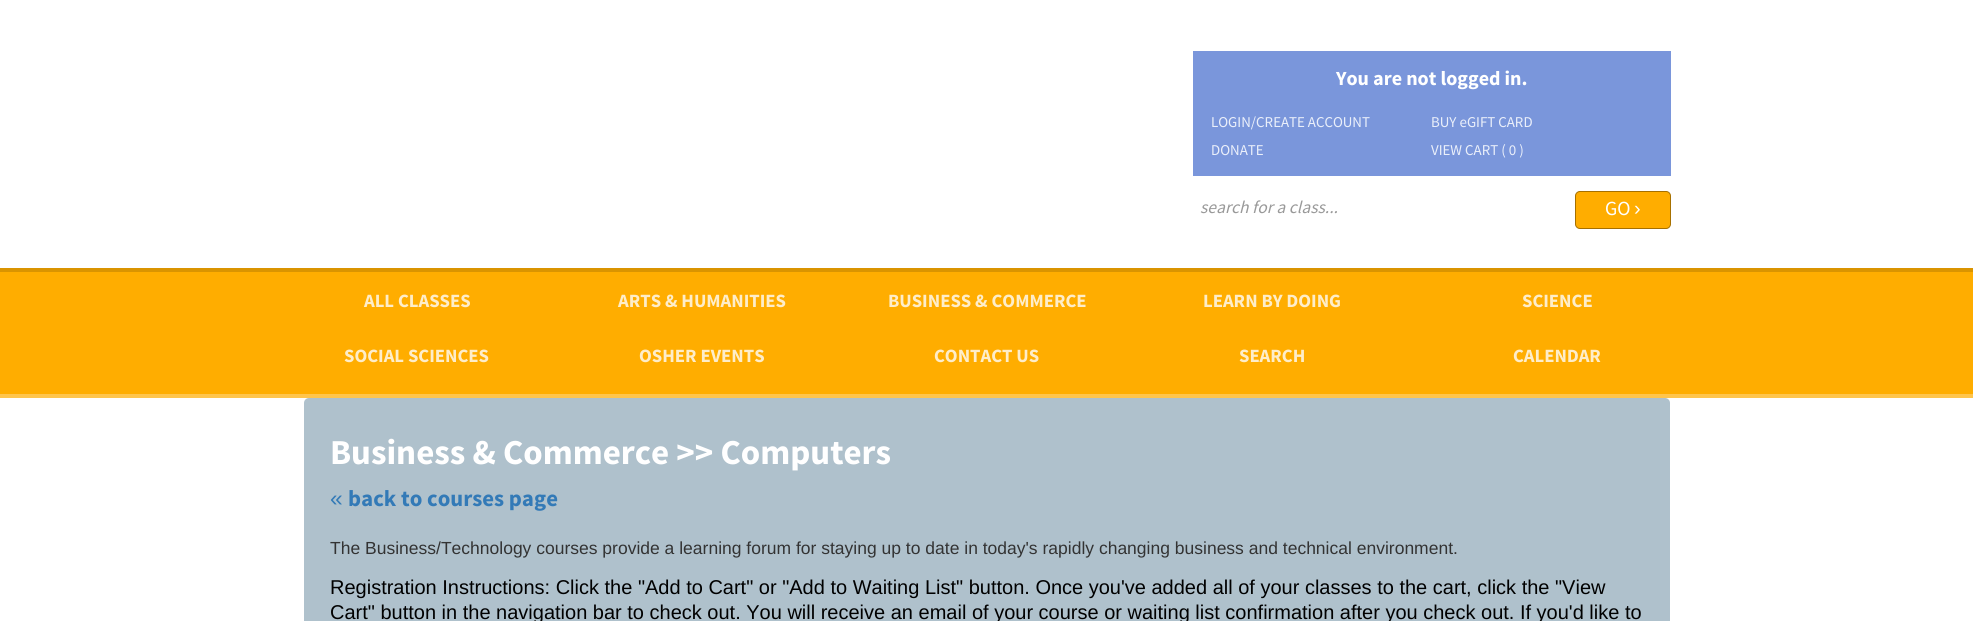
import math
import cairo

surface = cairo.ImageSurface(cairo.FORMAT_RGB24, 1973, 621)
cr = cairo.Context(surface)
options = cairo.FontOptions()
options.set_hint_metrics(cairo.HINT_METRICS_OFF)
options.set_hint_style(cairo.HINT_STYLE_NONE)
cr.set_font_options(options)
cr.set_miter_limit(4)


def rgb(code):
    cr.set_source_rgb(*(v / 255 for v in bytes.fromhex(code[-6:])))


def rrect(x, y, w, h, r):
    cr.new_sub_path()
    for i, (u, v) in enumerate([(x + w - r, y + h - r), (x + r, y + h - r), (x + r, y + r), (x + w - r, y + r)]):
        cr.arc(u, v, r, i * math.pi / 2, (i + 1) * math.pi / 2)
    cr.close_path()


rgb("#ffffff")
cr.paint()
rgb("#7a96db")
cr.rectangle(1193, 51, 478, 125)
cr.fill()
rgb("#ffad00")
rrect(1575.5, 191.5, 95, 37, 4.5)
cr.fill_preserve()
rgb("#a67000")
cr.set_line_width(1)
cr.stroke()
for x, y, w, h, color in [
    (0, 272, 1973, 122, "#ffad00"),
    (0, 268, 1973, 4, "#da9400"),
    (0, 394, 1973, 4, "#ffc54c"),
]:
    rgb(color)
    cr.rectangle(x, y, w, h)
    cr.fill()
rgb("#afc1cc")
rrect(304, 398, 1366, 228, 5)
cr.fill()
cr.select_font_face("Source Sans Pro", cairo.FONT_SLANT_NORMAL, cairo.FONT_WEIGHT_BOLD)
cr.set_font_size(20)
rgb("#ffffff")
cr.move_to(1336, 85)
cr.show_text("You are not logged in.")
cr.select_font_face("Source Sans Pro")
cr.set_font_size(15)
rgb("#eaeffa")
for x, y, s in [
    (1211, 127, "LOGIN/CREATE ACCOUNT"),
    (1431, 127, "BUY eGIFT CARD"),
    (1211, 155, "DONATE"),
    (1431, 155, "VIEW CART ( 0 )"),
]:
    cr.move_to(x, y)
    cr.show_text(s)
cr.select_font_face("Source Sans Pro", cairo.FONT_SLANT_ITALIC)
cr.set_font_size(17.5)
rgb("#999999")
cr.move_to(1200, 213)
cr.show_text("search for a class...")
cr.select_font_face("Source Sans Pro")
cr.set_font_size(20)
rgb("#ffffff")
cr.move_to(1605, 215)
cr.show_text("GO")
cr.select_font_face("Liberation Sans")
cr.move_to(1634, 215)
cr.show_text("›")
cr.select_font_face("Source Sans Pro", cairo.FONT_SLANT_NORMAL, cairo.FONT_WEIGHT_BOLD)
cr.set_font_size(18.75)
rgb("#feedc9")
for x, y, s in [
    (364, 307, "ALL CLASSES"),
    (618, 307, "ARTS & HUMANITIES"),
    (888, 307, "BUSINESS & COMMERCE"),
    (1203, 307, "LEARN BY DOING"),
    (1522, 307, "SCIENCE"),
    (344, 362, "SOCIAL SCIENCES"),
    (639, 362, "OSHER EVENTS"),
    (934, 362, "CONTACT US"),
    (1239, 362, "SEARCH"),
    (1513, 362, "CALENDAR"),
]:
    cr.move_to(x, y)
    cr.show_text(s)
cr.set_font_size(35)
rgb("#ffffff")
cr.move_to(330, 464)
cr.show_text("Business & Commerce >> Computers")
cr.select_font_face("Liberation Sans")
cr.set_font_size(22.75)
rgb("#337ab7")
cr.move_to(330, 506)
cr.show_text("«")
cr.select_font_face("Source Sans Pro", cairo.FONT_SLANT_NORMAL, cairo.FONT_WEIGHT_BOLD)
cr.move_to(348, 506)
cr.show_text("back to courses page")
cr.select_font_face("Liberation Sans")
cr.set_font_size(17.5)
rgb("#333333")
cr.move_to(330, 554)
cr.show_text("The Business/Technology courses provide a learning forum for staying up to date in today's rapidly changing business and technical environment.")
cr.set_font_size(20)
rgb("#000000")
cr.move_to(330, 594)
cr.show_text("Registration Instructions: Click the \"Add to Cart\" or \"Add to Waiting List\" button. Once you've added all of your classes to the cart, click the \"View")
cr.move_to(330, 619)
cr.show_text("Cart\" button in the navigation bar to check out. You will receive an email of your course or waiting list confirmation after you check out. If you'd like to")
surface.write_to_png("page.png")
